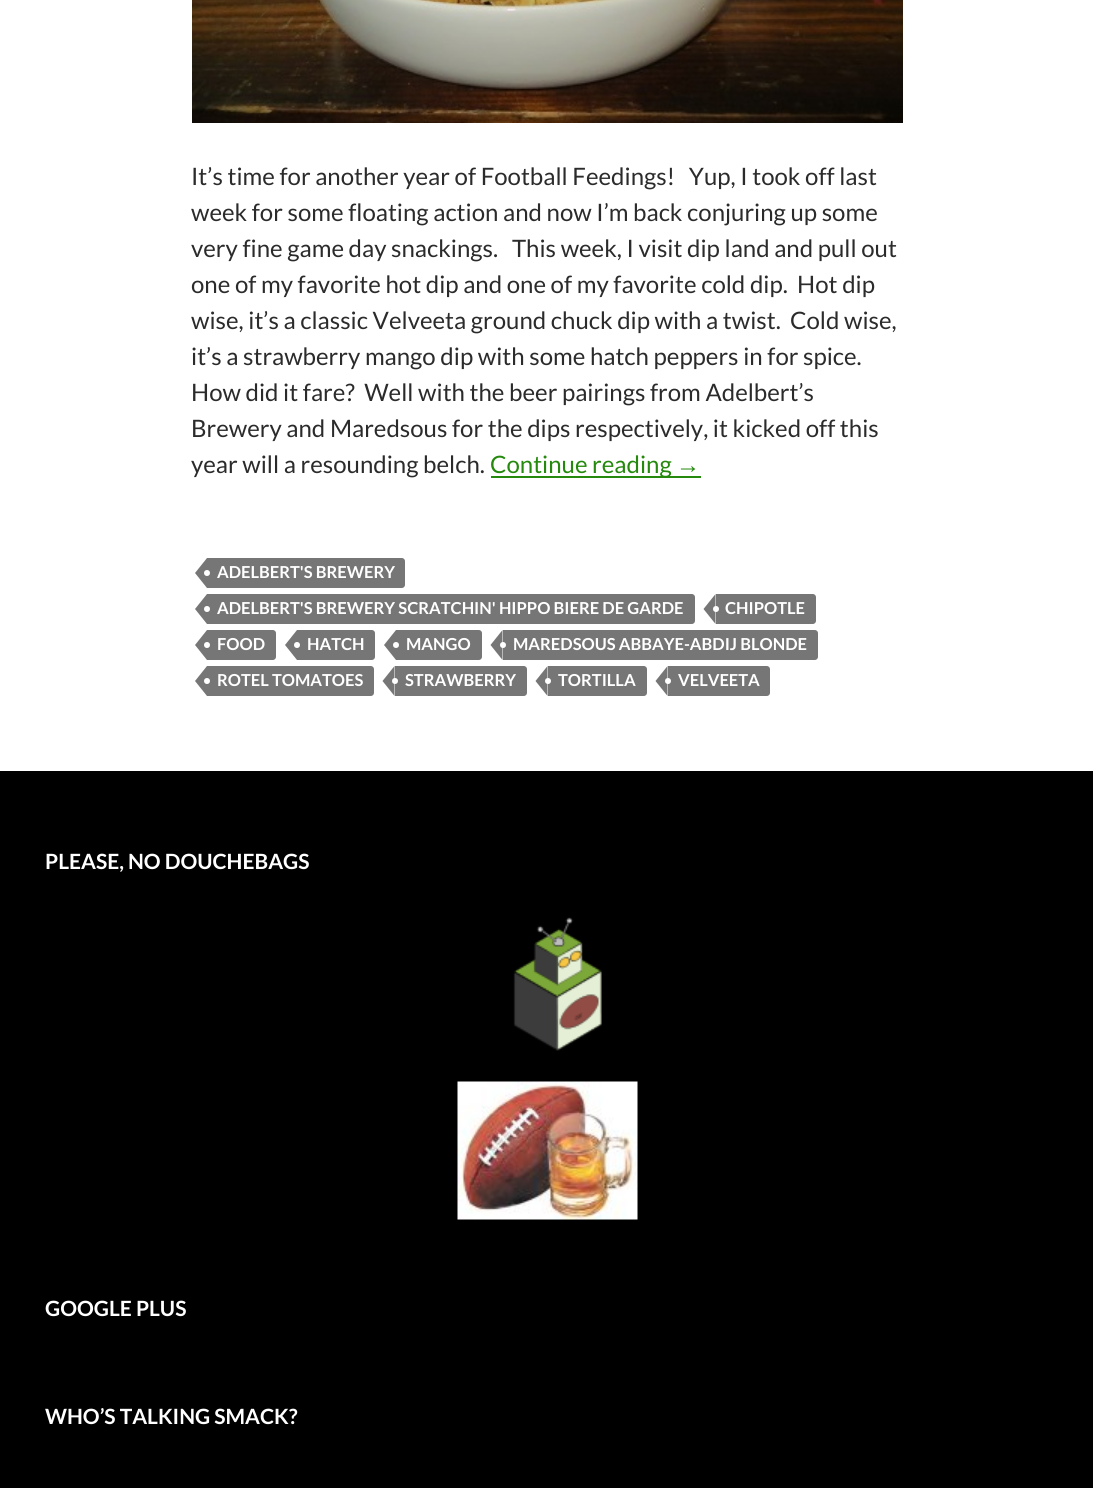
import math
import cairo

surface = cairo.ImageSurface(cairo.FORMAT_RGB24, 1093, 1488)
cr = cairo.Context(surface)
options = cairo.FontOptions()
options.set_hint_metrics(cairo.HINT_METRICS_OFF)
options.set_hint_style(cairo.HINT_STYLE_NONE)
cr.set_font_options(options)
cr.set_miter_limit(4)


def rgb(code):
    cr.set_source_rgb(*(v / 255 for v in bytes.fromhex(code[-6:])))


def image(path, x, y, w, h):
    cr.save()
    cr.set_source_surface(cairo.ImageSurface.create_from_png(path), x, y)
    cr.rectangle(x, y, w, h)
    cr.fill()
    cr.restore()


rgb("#ffffff")
cr.paint()
image("img/1.png", 192, 0, 711, 123)
rgb("#24890d")
cr.rectangle(491, 476, 210, 2)
cr.fill()
rgb("#767676")
cr.new_path()
cr.move_to(207, 558)
cr.line_to(402, 558)
cr.curve_to(403.5, 558, 405, 559.5, 405, 561)
cr.line_to(405, 585)
cr.curve_to(405, 586.5, 403.5, 588, 402, 588)
cr.line_to(207, 588)
cr.close_path()
cr.fill()
cr.new_path()
cr.move_to(207, 558)
cr.line_to(207, 588)
cr.line_to(195, 573)
cr.close_path()
cr.fill()
rgb("#ffffff")
cr.arc(207, 573, 3, 0, 2 * math.pi)
cr.fill()
rgb("#767676")
cr.new_path()
cr.move_to(207, 594)
cr.line_to(692, 594)
cr.curve_to(693.5, 594, 695, 595.5, 695, 597)
cr.line_to(695, 621)
cr.curve_to(695, 622.5, 693.5, 624, 692, 624)
cr.line_to(207, 624)
cr.close_path()
cr.fill()
cr.new_path()
cr.move_to(207, 594)
cr.line_to(207, 624)
cr.line_to(195, 609)
cr.close_path()
cr.fill()
rgb("#ffffff")
cr.arc(207, 609, 3, 0, 2 * math.pi)
cr.fill()
rgb("#767676")
cr.new_path()
cr.move_to(716, 594)
cr.line_to(813, 594)
cr.curve_to(814.5, 594, 816, 595.5, 816, 597)
cr.line_to(816, 621)
cr.curve_to(816, 622.5, 814.5, 624, 813, 624)
cr.line_to(716, 624)
cr.close_path()
cr.fill()
cr.new_path()
cr.move_to(715.5, 594)
cr.line_to(715.5, 624)
cr.line_to(703.5, 609)
cr.close_path()
cr.fill()
rgb("#ffffff")
cr.arc(716, 609, 3, 0, 2 * math.pi)
cr.fill()
rgb("#767676")
cr.new_path()
cr.move_to(207, 630)
cr.line_to(273, 630)
cr.curve_to(274.5, 630, 276, 631.5, 276, 633)
cr.line_to(276, 657)
cr.curve_to(276, 658.5, 274.5, 660, 273, 660)
cr.line_to(207, 660)
cr.close_path()
cr.fill()
cr.new_path()
cr.move_to(207, 630)
cr.line_to(207, 660)
cr.line_to(195, 645)
cr.close_path()
cr.fill()
rgb("#ffffff")
cr.arc(207, 645, 3, 0, 2 * math.pi)
cr.fill()
rgb("#767676")
cr.new_path()
cr.move_to(297, 630)
cr.line_to(372, 630)
cr.curve_to(373.5, 630, 375, 631.5, 375, 633)
cr.line_to(375, 657)
cr.curve_to(375, 658.5, 373.5, 660, 372, 660)
cr.line_to(297, 660)
cr.close_path()
cr.fill()
cr.new_path()
cr.move_to(297, 630)
cr.line_to(297, 660)
cr.line_to(285, 645)
cr.close_path()
cr.fill()
rgb("#ffffff")
cr.arc(297, 645, 3, 0, 2 * math.pi)
cr.fill()
rgb("#767676")
cr.new_path()
cr.move_to(396, 630)
cr.line_to(479, 630)
cr.curve_to(480.5, 630, 482, 631.5, 482, 633)
cr.line_to(482, 657)
cr.curve_to(482, 658.5, 480.5, 660, 479, 660)
cr.line_to(396, 660)
cr.close_path()
cr.fill()
cr.new_path()
cr.move_to(396, 630)
cr.line_to(396, 660)
cr.line_to(384, 645)
cr.close_path()
cr.fill()
rgb("#ffffff")
cr.arc(396, 645, 3, 0, 2 * math.pi)
cr.fill()
rgb("#767676")
cr.new_path()
cr.move_to(503, 630)
cr.line_to(815, 630)
cr.curve_to(816.5, 630, 818, 631.5, 818, 633)
cr.line_to(818, 657)
cr.curve_to(818, 658.5, 816.5, 660, 815, 660)
cr.line_to(503, 660)
cr.close_path()
cr.fill()
cr.new_path()
cr.move_to(502.5, 630)
cr.line_to(502.5, 660)
cr.line_to(490.5, 645)
cr.close_path()
cr.fill()
rgb("#ffffff")
cr.arc(503, 645, 3, 0, 2 * math.pi)
cr.fill()
rgb("#767676")
cr.new_path()
cr.move_to(207, 666)
cr.line_to(371, 666)
cr.curve_to(372.5, 666, 374, 667.5, 374, 669)
cr.line_to(374, 693)
cr.curve_to(374, 694.5, 372.5, 696, 371, 696)
cr.line_to(207, 696)
cr.close_path()
cr.fill()
cr.new_path()
cr.move_to(207, 666)
cr.line_to(207, 696)
cr.line_to(195, 681)
cr.close_path()
cr.fill()
rgb("#ffffff")
cr.arc(207, 681, 3, 0, 2 * math.pi)
cr.fill()
rgb("#767676")
cr.new_path()
cr.move_to(395, 666)
cr.line_to(524, 666)
cr.curve_to(525.5, 666, 527, 667.5, 527, 669)
cr.line_to(527, 693)
cr.curve_to(527, 694.5, 525.5, 696, 524, 696)
cr.line_to(395, 696)
cr.close_path()
cr.fill()
cr.new_path()
cr.move_to(394.5, 666)
cr.line_to(394.5, 696)
cr.line_to(382.5, 681)
cr.close_path()
cr.fill()
rgb("#ffffff")
cr.arc(395, 681, 3, 0, 2 * math.pi)
cr.fill()
rgb("#767676")
cr.new_path()
cr.move_to(548, 666)
cr.line_to(644, 666)
cr.curve_to(645.5, 666, 647, 667.5, 647, 669)
cr.line_to(647, 693)
cr.curve_to(647, 694.5, 645.5, 696, 644, 696)
cr.line_to(548, 696)
cr.close_path()
cr.fill()
cr.new_path()
cr.move_to(547.5, 666)
cr.line_to(547.5, 696)
cr.line_to(535.5, 681)
cr.close_path()
cr.fill()
rgb("#ffffff")
cr.arc(548, 681, 3, 0, 2 * math.pi)
cr.fill()
rgb("#767676")
cr.new_path()
cr.move_to(668, 666)
cr.line_to(767, 666)
cr.curve_to(768.5, 666, 770, 667.5, 770, 669)
cr.line_to(770, 693)
cr.curve_to(770, 694.5, 768.5, 696, 767, 696)
cr.line_to(668, 696)
cr.close_path()
cr.fill()
cr.new_path()
cr.move_to(667.5, 666)
cr.line_to(667.5, 696)
cr.line_to(655.5, 681)
cr.close_path()
cr.fill()
rgb("#ffffff")
cr.arc(668, 681, 3, 0, 2 * math.pi)
cr.fill()
rgb("#000000")
cr.rectangle(0, 771, 1093, 717)
cr.fill()
image("img/2.png", 513, 917, 89, 134)
image("img/3.png", 457, 1081, 181, 139)
cr.select_font_face("Lato")
cr.set_font_size(24)
rgb("#2b2b2b")
for x, y, s in [
    (191, 185, "It’s time for another year of Football Feedings!   Yup, I took off last"),
    (191, 221, "week for some floating action and now I’m back conjuring up some"),
    (191, 257, "very fine game day snackings.   This week, I visit dip land and pull out"),
    (191, 293, "one of my favorite hot dip and one of my favorite cold dip.  Hot dip"),
    (191, 329, "wise, it’s a classic Velveeta ground chuck dip with a twist.  Cold wise,"),
    (191, 365, "it’s a strawberry mango dip with some hatch peppers in for spice."),
    (191, 401, "How did it fare?  Well with the beer pairings from Adelbert’s"),
    (191, 437, "Brewery and Maredsous for the dips respectively, it kicked off this"),
    (191, 473, "year will a resounding belch."),
]:
    cr.move_to(x, y)
    cr.show_text(s)
rgb("#24890d")
cr.move_to(490, 473)
cr.show_text("Continue reading")
cr.select_font_face("Liberation Sans")
cr.move_to(676, 473)
cr.show_text("→")
cr.select_font_face("Lato", cairo.FONT_SLANT_NORMAL, cairo.FONT_WEIGHT_BOLD)
cr.set_font_size(16.5)
rgb("#ffffff")
for x, y, s in [
    (217, 578, "ADELBERT'S BREWERY"),
    (217, 614, "ADELBERT'S BREWERY SCRATCHIN' HIPPO BIERE DE GARDE"),
    (725, 614, "CHIPOTLE"),
    (217, 650, "FOOD"),
    (307, 650, "HATCH"),
    (406, 650, "MANGO"),
    (513, 650, "MAREDSOUS ABBAYE-ABDIJ BLONDE"),
    (217, 686, "ROTEL TOMATOES"),
    (405, 686, "STRAWBERRY"),
    (558, 686, "TORTILLA"),
    (678, 686, "VELVEETA"),
]:
    cr.move_to(x, y)
    cr.show_text(s)
cr.set_font_size(21)
for x, y, s in [
    (45, 869, "PLEASE, NO DOUCHEBAGS"),
    (45, 1316, "GOOGLE PLUS"),
    (45, 1424, "WHO’S TALKING SMACK?"),
]:
    cr.move_to(x, y)
    cr.show_text(s)
surface.write_to_png("page.png")
